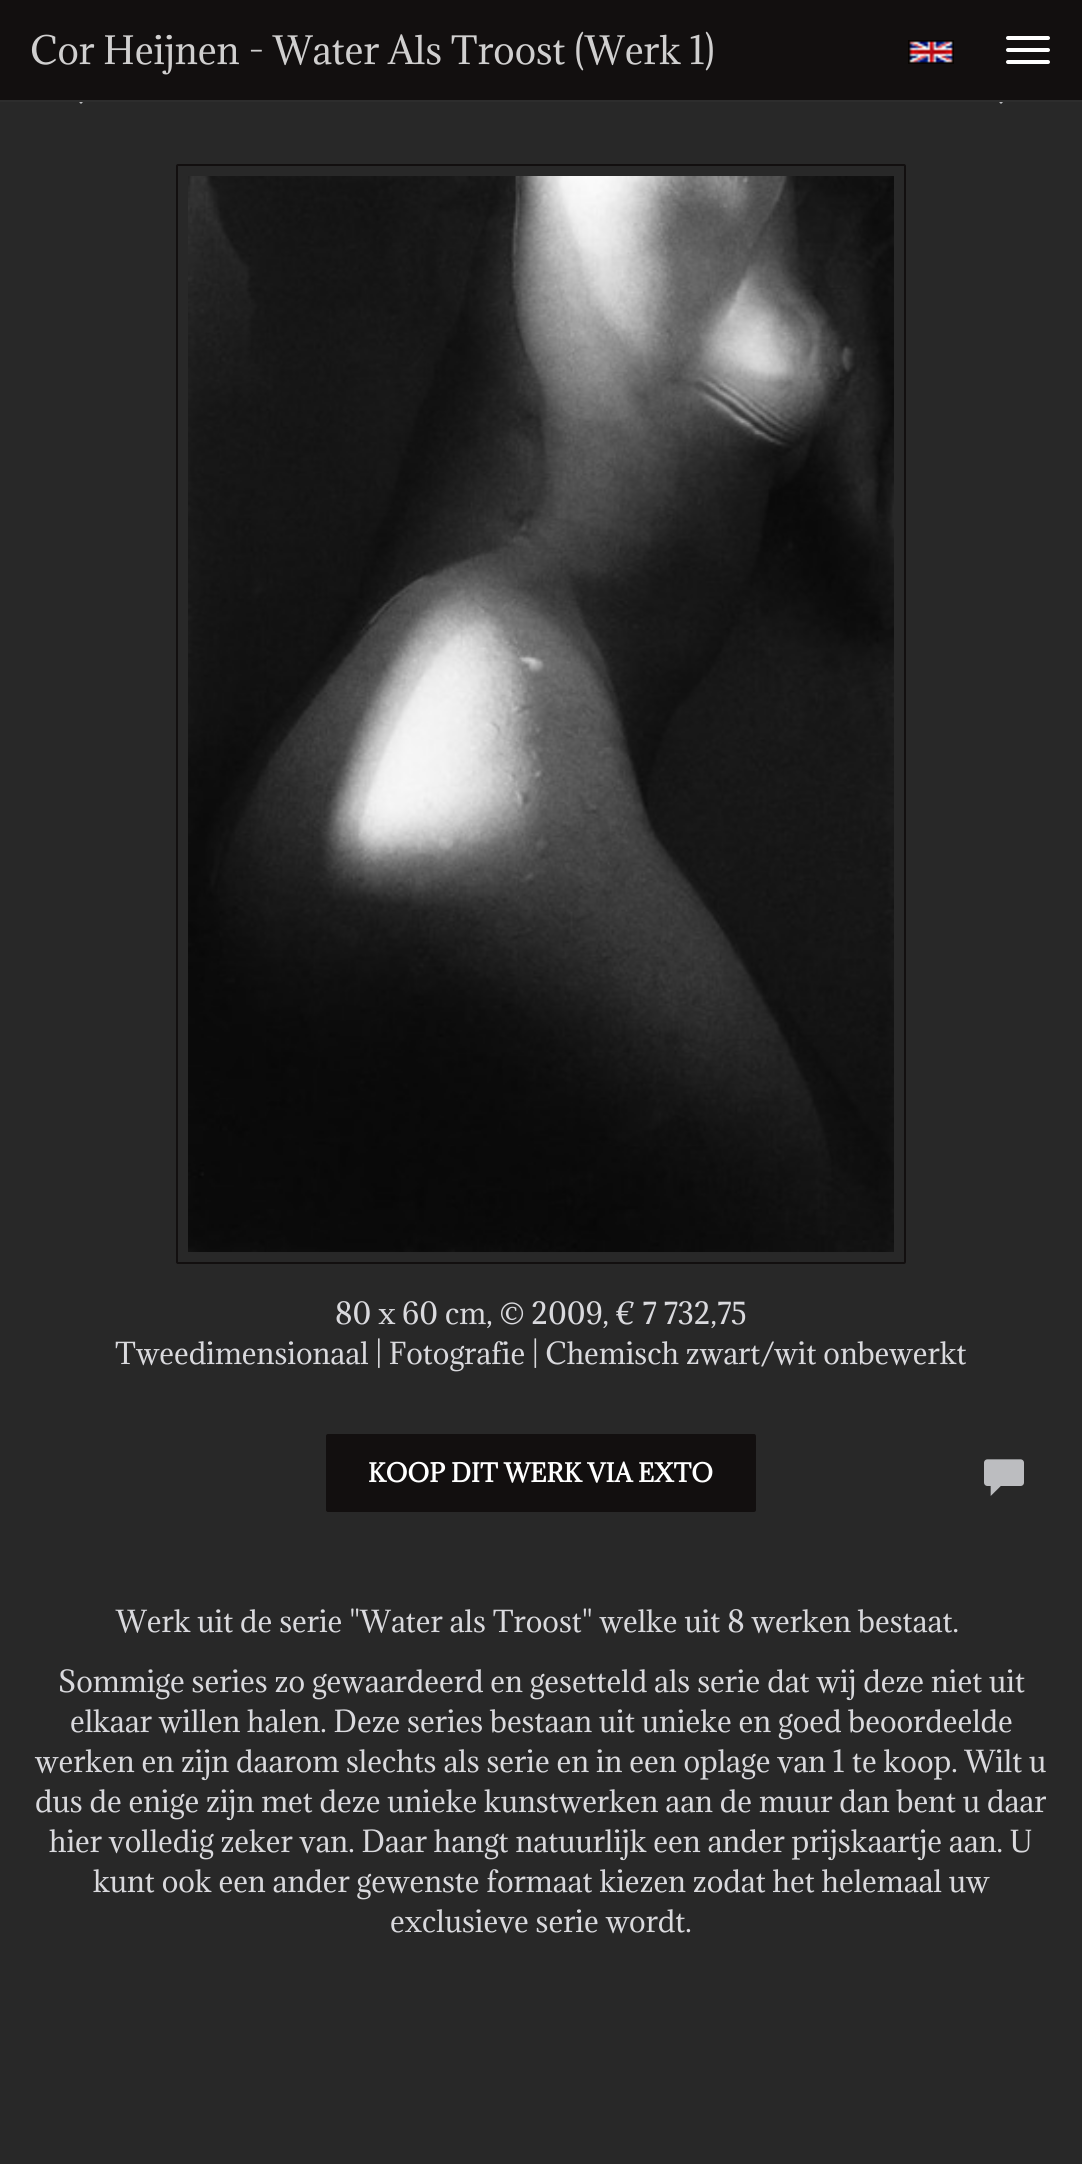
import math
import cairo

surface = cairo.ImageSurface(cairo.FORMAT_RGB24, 1082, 2164)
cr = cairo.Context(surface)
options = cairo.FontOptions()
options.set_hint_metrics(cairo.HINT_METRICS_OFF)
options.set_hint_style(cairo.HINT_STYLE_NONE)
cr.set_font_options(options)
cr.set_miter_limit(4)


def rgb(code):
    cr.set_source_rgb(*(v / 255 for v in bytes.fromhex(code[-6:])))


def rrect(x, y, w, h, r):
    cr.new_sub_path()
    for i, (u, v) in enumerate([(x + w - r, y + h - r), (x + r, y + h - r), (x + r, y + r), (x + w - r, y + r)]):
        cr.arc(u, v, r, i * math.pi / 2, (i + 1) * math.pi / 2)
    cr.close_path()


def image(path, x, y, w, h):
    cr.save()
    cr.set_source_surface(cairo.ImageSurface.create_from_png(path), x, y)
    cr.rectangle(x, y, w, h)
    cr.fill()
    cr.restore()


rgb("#282828")
cr.paint()
rgb("#bcbdc0")
cr.new_path()
cr.move_to(87.5, 74)
cr.line_to(76, 86)
cr.line_to(87.5, 97.5)
cr.line_to(81, 104)
cr.line_to(62.5, 85.5)
cr.line_to(81, 67.5)
cr.close_path()
cr.fill()
cr.new_path()
cr.move_to(1019.5, 86)
cr.line_to(1001, 104)
cr.line_to(994.5, 97.5)
cr.line_to(1006.5, 86)
cr.line_to(994.5, 74)
cr.line_to(1001, 67.5)
cr.close_path()
cr.fill()
rgb("#120f0f")
cr.rectangle(0, 0, 1082, 100)
cr.fill()
rgb("#2d2d2d")
cr.rectangle(0, 100, 1082, 2)
cr.fill()
rgb("#ffffff")
rrect(1006, 36, 44, 4, 2)
cr.fill()
rrect(1006, 48, 44, 4, 2)
cr.fill()
rrect(1006, 60, 44, 4, 2)
cr.fill()
image("img/1.png", 908, 40, 46, 24)
rrect(177, 165, 728, 1098, 1)
rgb("#120f0f")
cr.stroke()
image("img/2.png", 188, 176, 706, 1076)
rrect(327, 1435, 428, 76, 1)
cr.fill_preserve()
cr.stroke()
image("img/3.png", 984, 1459, 40, 37)
cr.select_font_face("Adamina")
cr.set_font_size(36)
rgb("#d0cfcf")
cr.move_to(30, 64)
cr.show_text("Cor Heijnen - Water Als Troost (Werk 1)")
cr.set_font_size(28)
rgb("#d9d9dd")
cr.move_to(335, 1324)
cr.show_text("80 x 60 cm, © 2009, € 7 732,75")
cr.move_to(115, 1364)
cr.show_text("Tweedimensionaal | Fotografie | Chemisch zwart/wit onbewerkt")
cr.select_font_face("Adamina", cairo.FONT_SLANT_NORMAL, cairo.FONT_WEIGHT_BOLD)
cr.set_font_size(24)
rgb("#ffffff")
cr.move_to(368, 1482)
cr.show_text("KOOP DIT WERK VIA EXTO")
cr.select_font_face("Adamina")
cr.set_font_size(28)
rgb("#d9d9dd")
for x, y, s in [
    (116, 1632, "Werk uit de serie \"Water als Troost\" welke uit 8 werken bestaat."),
    (58, 1692, "Sommige series zo gewaardeerd en gesetteld als serie dat wij deze niet uit"),
    (70, 1732, "elkaar willen halen. Deze series bestaan uit unieke en goed beoordeelde"),
    (35, 1772, "werken en zijn daarom slechts als serie en in een oplage van 1 te koop. Wilt u"),
    (35, 1812, "dus de enige zijn met deze unieke kunstwerken aan de muur dan bent u daar"),
    (49, 1852, "hier volledig zeker van. Daar hangt natuurlijk een ander prijskaartje aan. U"),
    (93, 1892, "kunt ook een ander gewenste formaat kiezen zodat het helemaal uw"),
    (390, 1932, "exclusieve serie wordt."),
]:
    cr.move_to(x, y)
    cr.show_text(s)
surface.write_to_png("page.png")
